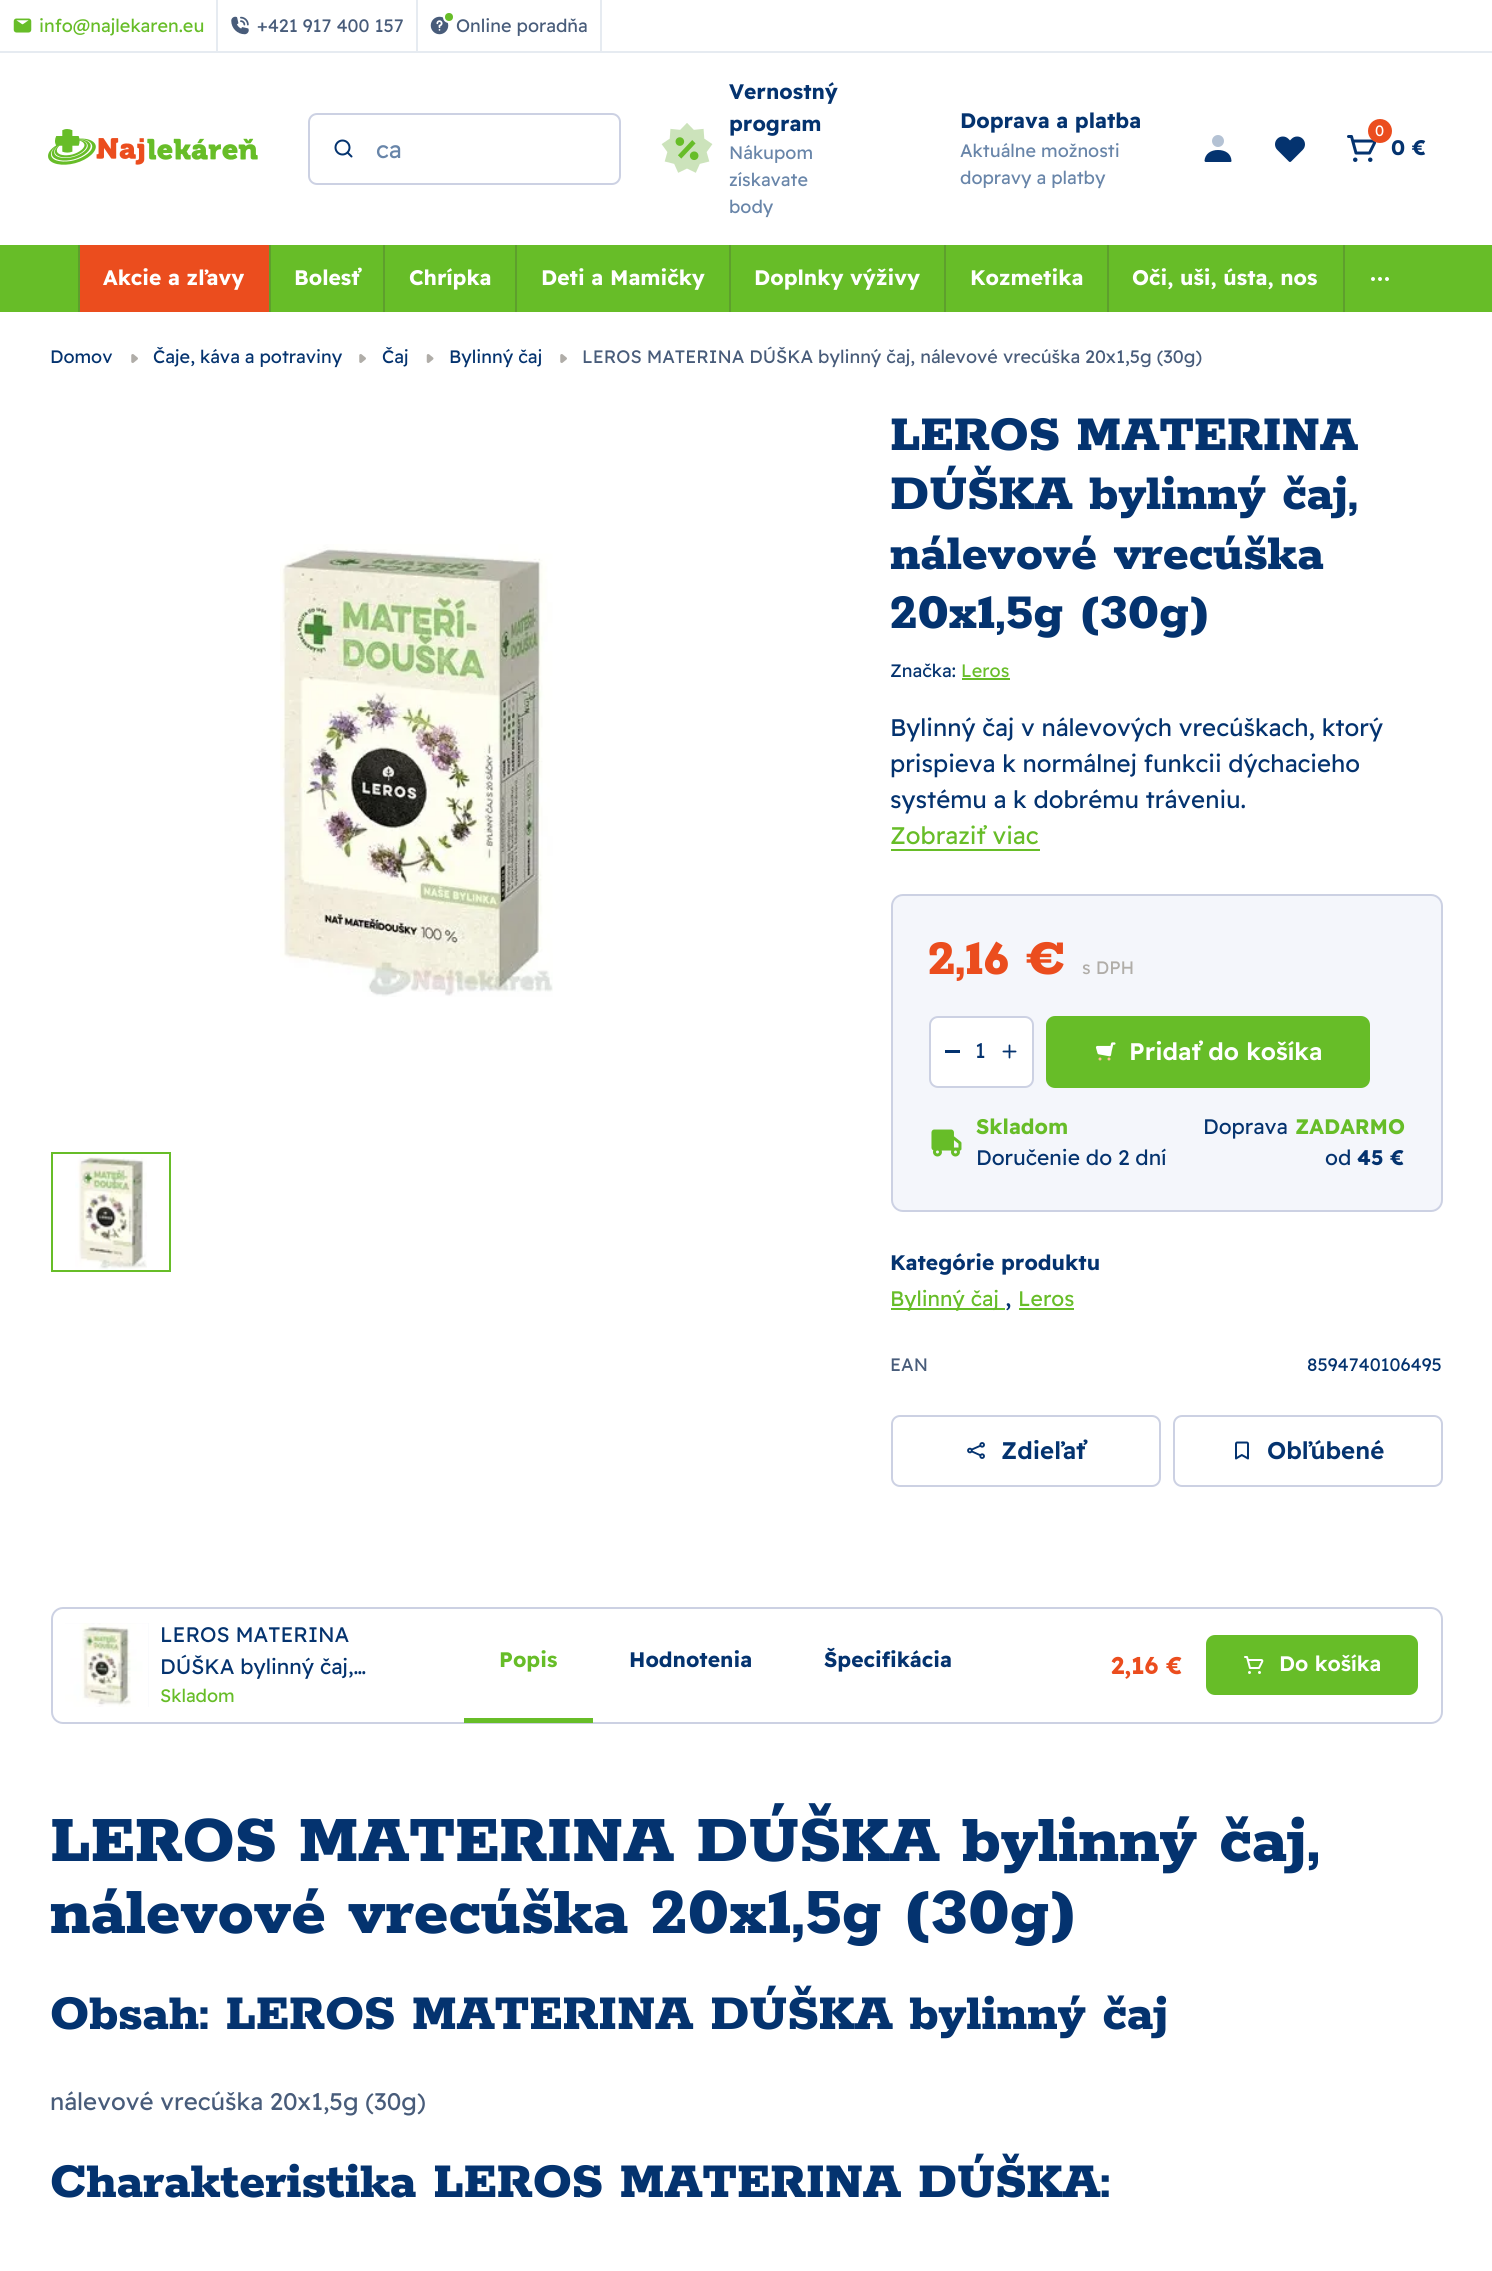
import math
import cairo

surface = cairo.ImageSurface(cairo.FORMAT_RGB24, 1492, 2271)
cr = cairo.Context(surface)
options = cairo.FontOptions()
options.set_hint_metrics(cairo.HINT_METRICS_OFF)
options.set_hint_style(cairo.HINT_STYLE_NONE)
cr.set_font_options(options)
cr.set_miter_limit(4)


def rgb(code):
    cr.set_source_rgb(*(v / 255 for v in bytes.fromhex(code[-6:])))


def rrect(x, y, w, h, r):
    cr.new_sub_path()
    for i, (u, v) in enumerate([(x + w - r, y + h - r), (x + r, y + h - r), (x + r, y + r), (x + w - r, y + r)]):
        cr.arc(u, v, r, i * math.pi / 2, (i + 1) * math.pi / 2)
    cr.close_path()


def image(path, x, y, w, h):
    cr.save()
    cr.set_source_surface(cairo.ImageSurface.create_from_png(path), x, y)
    cr.rectangle(x, y, w, h)
    cr.fill()
    cr.restore()


rgb("#ffffff")
cr.paint()
rgb("#e6ebf1")
cr.rectangle(0, 51, 1492, 2)
cr.fill()
cr.rectangle(216, 0, 2, 51)
cr.fill()
image("img/1.png", 13, 18, 19, 15)
cr.rectangle(416, 0, 2, 51)
cr.fill()
image("img/2.png", 231, 16, 18, 19)
cr.rectangle(600, 0, 2, 51)
cr.fill()
image("img/3.png", 430, 16, 19, 19)
rgb("#67bd28")
cr.arc(449, 17, 5, 0, 2 * math.pi)
cr.fill_preserve()
rgb("#ffffff")
cr.stroke()
image("img/4.png", 48, 129, 210, 36)
rrect(309, 114, 311, 70, 8)
rgb("#ccd1e3")
cr.stroke()
image("img/5.png", 334, 139, 19, 19)
image("img/6.png", 661, 123, 52, 50)
image("img/7.png", 1204, 135, 28, 27)
image("img/8.png", 1275, 136, 30, 26)
image("img/9.png", 1347, 135, 30, 27)
rgb("#eb4d1e")
cr.arc(1380, 131, 12, 0, 2 * math.pi)
cr.fill()
for x, y, w, h, color in [
    (0, 245, 1492, 67, "#67bd28"),
    (269, 245, 2, 67, "#5e9f2d"),
    (78, 245, 2, 67, "#5e9f2d"),
    (80, 245, 189, 67, "#eb4d1e"),
    (383, 245, 2, 67, "#5e9f2d"),
    (515, 245, 2, 67, "#5e9f2d"),
    (729, 245, 2, 67, "#5e9f2d"),
    (944, 245, 2, 67, "#5e9f2d"),
    (1107, 245, 2, 67, "#5e9f2d"),
    (1343, 245, 2, 67, "#5e9f2d"),
]:
    rgb(color)
    cr.rectangle(x, y, w, h)
    cr.fill()
image("img/10.png", 1371, 277, 18, 4)
image("img/11.png", 131, 354, 7, 9)
image("img/11.png", 359, 354, 7, 9)
image("img/12.png", 426, 354, 8, 9)
image("img/11.png", 560, 354, 7, 9)
image("img/13.png", 280, 544, 273, 453)
image("img/14.png", 75, 1156, 72, 114)
cr.rectangle(52, 1153, 118, 118)
rgb("#67bd28")
cr.stroke()
cr.rectangle(962, 678, 48, 2)
cr.fill()
cr.rectangle(891, 849, 149, 2)
cr.fill()
rgb("#f4f6fb")
rrect(892, 895, 550, 316, 11)
cr.fill_preserve()
rgb("#ccd1e3")
cr.stroke()
rgb("#ffffff")
rrect(930, 1017, 103, 70, 8)
cr.fill_preserve()
rgb("#ccd1e3")
cr.stroke()
rgb("#04336f")
cr.rectangle(945, 1050, 15, 3)
cr.fill()
image("img/15.png", 1002, 1044, 15, 15)
rgb("#67bd28")
rrect(1046, 1016, 324, 72, 9)
cr.fill()
image("img/16.png", 1095, 1042, 21, 19)
image("img/17.png", 931, 1129, 31, 28)
cr.rectangle(891, 1308, 114, 2)
cr.fill()
cr.rectangle(1019, 1308, 55, 2)
cr.fill()
rrect(892, 1416, 268, 70, 8)
rgb("#ccd1e3")
cr.stroke()
image("img/18.png", 967, 1442, 18, 17)
rrect(1174, 1416, 268, 70, 8)
cr.stroke()
image("img/19.png", 1235, 1441, 14, 19)
rrect(52, 1608, 1390, 115, 11)
cr.stroke()
rgb("#f4f6fb")
cr.rectangle(65, 1623, 84, 84)
cr.fill()
image("img/20.png", 65, 1623, 84, 84)
rgb("#67bd28")
cr.rectangle(464, 1718, 129, 5)
cr.fill()
rrect(1206, 1635, 212, 60, 9)
cr.fill()
image("img/21.png", 1244, 1656, 20, 18)
cr.select_font_face("Readex Pro")
cr.set_font_size(18)
cr.move_to(39, 32)
cr.show_text("info@najlekaren.eu")
rgb("#485c7a")
cr.move_to(257, 32)
cr.show_text("+421 917 400 157")
cr.move_to(456, 32)
cr.show_text("Online poradňa")
cr.set_font_size(24)
rgb("#6885a9")
cr.move_to(376, 158)
cr.show_text("ca")
cr.select_font_face("Readex Pro", cairo.FONT_SLANT_NORMAL, cairo.FONT_WEIGHT_BOLD)
cr.set_font_size(21)
rgb("#04336f")
cr.move_to(729, 99)
cr.show_text("Vernostný")
cr.move_to(729, 131)
cr.show_text("program")
cr.select_font_face("Readex Pro")
cr.set_font_size(18)
rgb("#6885a9")
for x, y, s in [
    (729, 159, "Nákupom"),
    (729, 186, "získavate"),
    (729, 213, "body"),
]:
    cr.move_to(x, y)
    cr.show_text(s)
cr.select_font_face("Readex Pro", cairo.FONT_SLANT_NORMAL, cairo.FONT_WEIGHT_BOLD)
cr.set_font_size(21)
rgb("#04336f")
cr.move_to(960, 128)
cr.show_text("Doprava a platba")
cr.select_font_face("Readex Pro")
cr.set_font_size(18)
rgb("#6885a9")
cr.move_to(960, 157)
cr.show_text("Aktuálne možnosti")
cr.move_to(960, 184)
cr.show_text("dopravy a platby")
cr.set_font_size(15)
rgb("#ffffff")
cr.move_to(1375, 136)
cr.show_text("0")
cr.select_font_face("Readex Pro", cairo.FONT_SLANT_NORMAL, cairo.FONT_WEIGHT_BOLD)
cr.set_font_size(21)
rgb("#04336f")
cr.move_to(1391, 155)
cr.show_text("0 €")
rgb("#ffffff")
for x, y, s in [
    (103, 285, "Akcie a zľavy"),
    (294, 285, "Bolesť"),
    (409, 285, "Chrípka"),
    (541, 285, "Deti a Mamičky"),
    (754, 285, "Doplnky výživy"),
    (970, 285, "Kozmetika"),
    (1132, 285, "Oči, uši, ústa, nos"),
]:
    cr.move_to(x, y)
    cr.show_text(s)
cr.select_font_face("Readex Pro")
cr.set_font_size(18)
rgb("#04336f")
for x, y, s in [
    (50, 363, "Domov"),
    (153, 363, "Čaje, káva a potraviny"),
    (382, 363, "Čaj"),
    (449, 363, "Bylinný čaj"),
]:
    cr.move_to(x, y)
    cr.show_text(s)
rgb("#485c7a")
cr.move_to(582, 363)
cr.show_text("LEROS MATERINA DÚŠKA bylinný čaj, nálevové vrecúška 20x1,5g (30g)")
cr.select_font_face("Rokkitt ExtraBold")
cr.set_font_size(54)
rgb("#04336f")
for x, y, s in [
    (890, 450, "LEROS MATERINA"),
    (890, 509, "DÚŠKA bylinný čaj,"),
    (890, 569, "nálevové vrecúška"),
    (890, 628, "20x1,5g (30g)"),
]:
    cr.move_to(x, y)
    cr.show_text(s)
cr.select_font_face("Readex Pro")
cr.set_font_size(18)
cr.move_to(890, 677)
cr.show_text("Značka:")
rgb("#67bd28")
cr.move_to(961, 677)
cr.show_text("Leros")
cr.set_font_size(24)
rgb("#04336f")
for x, y, s in [
    (890, 736, "Bylinný čaj v nálevových vrecúškach, ktorý"),
    (890, 772, "prispieva k normálnej funkcii dýchacieho"),
    (890, 808, "systému a k dobrému tráveniu."),
]:
    cr.move_to(x, y)
    cr.show_text(s)
rgb("#67bd28")
cr.move_to(890, 844)
cr.show_text("Zobraziť viac")
cr.select_font_face("Rokkitt ExtraBold")
cr.set_font_size(54)
rgb("#eb4d1e")
cr.move_to(928, 974)
cr.show_text("2,16 €")
cr.select_font_face("Readex Pro")
cr.set_font_size(18)
rgb("#b0ada8")
cr.move_to(1082, 974)
cr.show_text("s DPH")
cr.set_font_size(21)
rgb("#04336f")
cr.move_to(975, 1058)
cr.show_text("1")
cr.select_font_face("Readex Pro SemiBold")
cr.set_font_size(24)
rgb("#ffffff")
cr.move_to(1129, 1060)
cr.show_text("Pridať do košíka")
cr.select_font_face("Readex Pro", cairo.FONT_SLANT_NORMAL, cairo.FONT_WEIGHT_BOLD)
cr.set_font_size(21)
rgb("#67bd28")
cr.move_to(976, 1134)
cr.show_text("Skladom")
cr.select_font_face("Readex Pro")
rgb("#04336f")
cr.move_to(976, 1165)
cr.show_text("Doručenie do 2 dní")
cr.move_to(1203, 1134)
cr.show_text("Doprava")
cr.select_font_face("Readex Pro", cairo.FONT_SLANT_NORMAL, cairo.FONT_WEIGHT_BOLD)
rgb("#67bd28")
cr.move_to(1295, 1134)
cr.show_text("ZADARMO")
cr.select_font_face("Readex Pro")
rgb("#04336f")
cr.move_to(1325, 1165)
cr.show_text("od")
cr.select_font_face("Readex Pro", cairo.FONT_SLANT_NORMAL, cairo.FONT_WEIGHT_BOLD)
cr.move_to(1357, 1165)
cr.show_text("45 €")
cr.move_to(890, 1270)
cr.show_text("Kategórie produktu")
cr.select_font_face("Readex Pro")
rgb("#67bd28")
cr.move_to(890, 1306)
cr.show_text("Bylinný čaj")
cr.set_font_size(24)
rgb("#04336f")
cr.move_to(1005, 1306)
cr.show_text(",")
cr.set_font_size(21)
rgb("#67bd28")
cr.move_to(1018, 1306)
cr.show_text("Leros")
cr.set_font_size(18)
rgb("#485c7a")
cr.move_to(890, 1371)
cr.show_text("EAN")
rgb("#04336f")
cr.move_to(1307, 1371)
cr.show_text("8594740106495")
cr.select_font_face("Readex Pro SemiBold")
cr.set_font_size(24)
cr.move_to(1001, 1459)
cr.show_text("Zdieľať")
cr.move_to(1267, 1459)
cr.show_text("Obľúbené")
cr.select_font_face("Readex Pro")
cr.set_font_size(21)
cr.move_to(160, 1642)
cr.show_text("LEROS MATERINA")
cr.move_to(160, 1674)
cr.show_text("DÚŠKA bylinný čaj,…")
cr.set_font_size(18)
rgb("#67bd28")
cr.move_to(160, 1702)
cr.show_text("Skladom")
cr.select_font_face("Readex Pro", cairo.FONT_SLANT_NORMAL, cairo.FONT_WEIGHT_BOLD)
cr.set_font_size(21)
cr.move_to(499, 1667)
cr.show_text("Popis")
rgb("#04336f")
cr.move_to(629, 1667)
cr.show_text("Hodnotenia")
cr.move_to(824, 1667)
cr.show_text("Špecifikácia")
cr.set_font_size(24)
rgb("#eb4d1e")
cr.move_to(1111, 1674)
cr.show_text("2,16 €")
cr.select_font_face("Readex Pro SemiBold")
cr.set_font_size(21)
rgb("#ffffff")
cr.move_to(1279, 1671)
cr.show_text("Do košíka")
cr.select_font_face("Rokkitt ExtraBold")
cr.set_font_size(72)
rgb("#04336f")
cr.move_to(50, 1861)
cr.show_text("LEROS MATERINA DÚŠKA bylinný čaj,")
cr.move_to(50, 1933)
cr.show_text("nálevové vrecúška 20x1,5g (30g)")
cr.set_font_size(54)
cr.move_to(50, 2029)
cr.show_text("Obsah: LEROS MATERINA DÚŠKA bylinný čaj")
cr.select_font_face("Readex Pro")
cr.set_font_size(24)
rgb("#485c7a")
cr.move_to(50, 2110)
cr.show_text("nálevové vrecúška 20x1,5g (30g)")
cr.select_font_face("Rokkitt ExtraBold")
cr.set_font_size(54)
rgb("#04336f")
cr.move_to(50, 2197)
cr.show_text("Charakteristika LEROS MATERINA DÚŠKA:")
surface.write_to_png("page.png")
